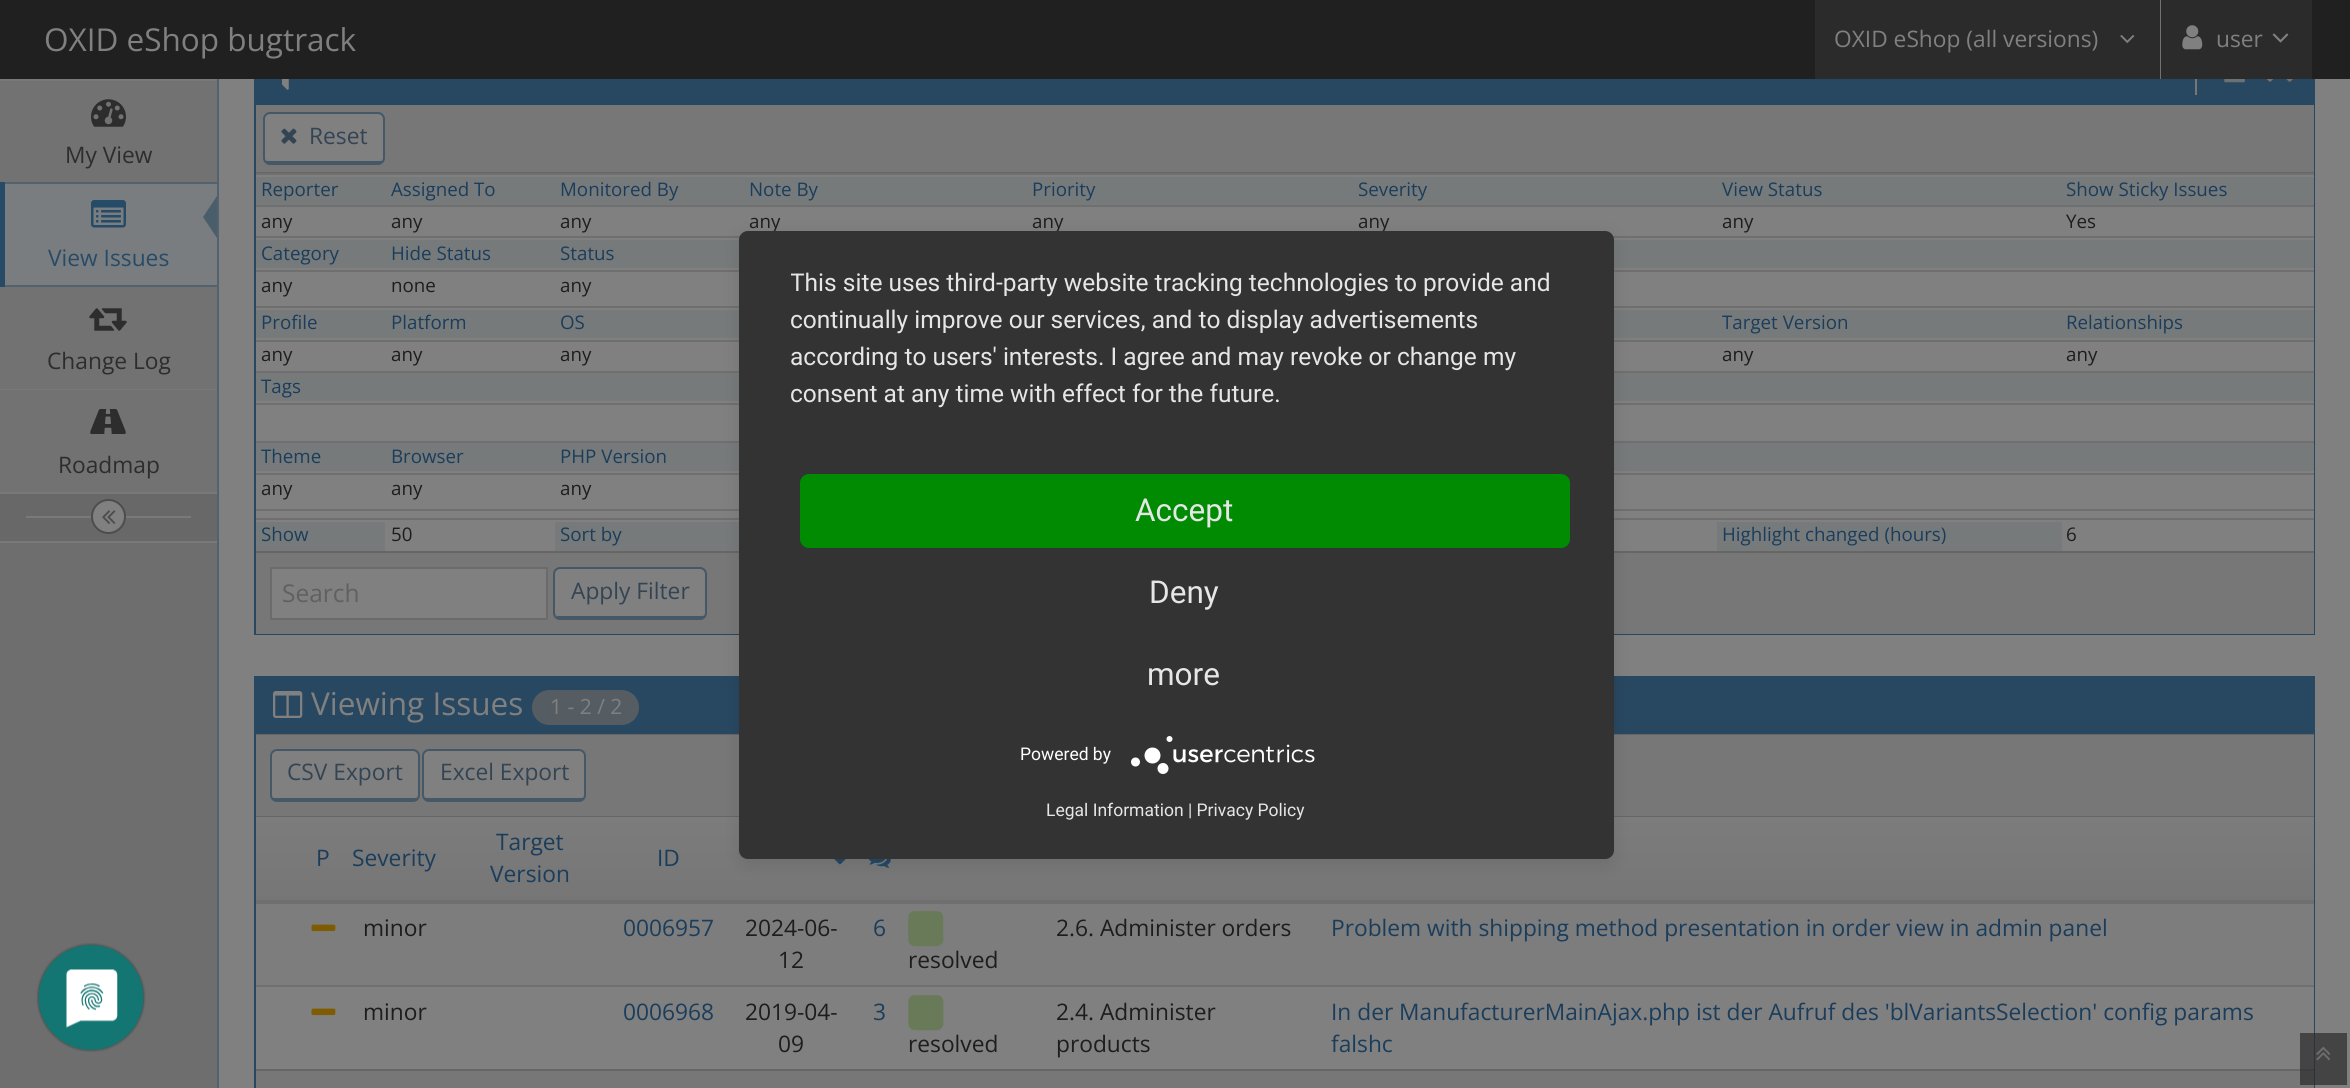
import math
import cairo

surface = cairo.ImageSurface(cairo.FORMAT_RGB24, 2350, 1088)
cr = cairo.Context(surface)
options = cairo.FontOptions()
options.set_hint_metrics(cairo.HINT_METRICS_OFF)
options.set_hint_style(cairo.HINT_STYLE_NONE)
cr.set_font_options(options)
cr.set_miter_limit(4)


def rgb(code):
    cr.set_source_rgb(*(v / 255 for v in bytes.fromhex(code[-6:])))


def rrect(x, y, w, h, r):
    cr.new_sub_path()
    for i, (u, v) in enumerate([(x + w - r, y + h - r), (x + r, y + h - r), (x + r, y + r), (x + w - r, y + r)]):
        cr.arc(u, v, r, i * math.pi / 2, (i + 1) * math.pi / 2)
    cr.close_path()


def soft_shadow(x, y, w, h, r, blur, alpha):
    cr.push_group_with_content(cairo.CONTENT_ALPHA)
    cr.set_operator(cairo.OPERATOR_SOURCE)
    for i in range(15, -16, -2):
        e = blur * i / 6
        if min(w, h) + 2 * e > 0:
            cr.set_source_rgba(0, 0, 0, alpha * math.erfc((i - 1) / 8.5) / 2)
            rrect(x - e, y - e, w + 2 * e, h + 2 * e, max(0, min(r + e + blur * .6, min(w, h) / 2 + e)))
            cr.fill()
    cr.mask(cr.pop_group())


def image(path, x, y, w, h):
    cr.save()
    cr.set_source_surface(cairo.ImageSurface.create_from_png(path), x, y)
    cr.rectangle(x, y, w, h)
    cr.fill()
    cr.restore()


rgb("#808080")
cr.paint()
cr.rectangle(255, 48, 2059, 586)
rgb("#284861")
cr.stroke()
rgb("#202020")
cr.rectangle(0, 0, 2350, 79)
cr.fill()
rgb("#2b2b2b")
cr.rectangle(1815, 0, 345, 79)
cr.fill()
image("img/1.png", 2120, 35, 15, 8)
rgb("#717171")
cr.rectangle(2160, 0, 1, 79)
cr.fill()
rgb("#2b2b2b")
cr.rectangle(2161, 0, 151, 79)
cr.fill()
image("img/2.png", 2182, 25, 21, 25)
image("img/3.png", 2272, 33, 17, 10)
for x, y, w, h, color in [
    (0, 543, 217, 545, "#6e6e6e"),
    (217, 79, 2, 1009, "#52636f"),
    (0, 79, 217, 2, "#797979"),
    (0, 81, 217, 101, "#727272"),
]:
    rgb(color)
    cr.rectangle(x, y, w, h)
    cr.fill()
image("img/4.png", 91, 99, 35, 28)
for x, y, w, h, color in [
    (0, 182, 217, 2, "#52636f"),
    (0, 285, 217, 2, "#52636f"),
    (0, 182, 5, 105, "#274b66"),
    (5, 184, 212, 101, "#7a7d80"),
]:
    rgb(color)
    cr.rectangle(x, y, w, h)
    cr.fill()
image("img/5.png", 91, 200, 35, 28)
rgb("#495d6b")
cr.new_path()
cr.move_to(217, 196)
cr.line_to(217, 238)
cr.line_to(203, 217)
cr.close_path()
cr.fill()
rgb("#727272")
cr.rectangle(0, 287, 217, 102)
cr.fill()
image("img/6.png", 89, 308, 38, 23)
for x, y, w, h, color in [
    (0, 389, 217, 1, "#797979"),
    (0, 492, 217, 2, "#797979"),
    (0, 390, 217, 102, "#727272"),
]:
    rgb(color)
    cr.rectangle(x, y, w, h)
    cr.fill()
image("img/7.png", 90, 409, 36, 25)
for x, y, w, h, color in [
    (0, 494, 217, 47, "#686868"),
    (0, 541, 217, 2, "#797979"),
    (26, 516, 165, 2, "#797979"),
]:
    rgb(color)
    cr.rectangle(x, y, w, h)
    cr.fill()
rgb("#808080")
cr.arc(108.5, 516.5, 16.5, 0, 2 * math.pi)
cr.fill_preserve()
rgb("#4d4d4d")
cr.stroke()
image("img/8.png", 102, 510, 14, 14)
rgb("#284861")
cr.rectangle(256, 79, 2057, 26)
cr.fill()
image("img/9.png", 282, 79, 7, 11)
rgb("#777777")
cr.rectangle(2195, 79, 2, 16)
cr.fill()
image("img/10.png", 2224, 79, 21, 4)
image("img/11.png", 2266, 79, 27, 3)
cr.rectangle(256, 105, 2058, 67)
cr.fill()
rgb("#666666")
cr.rectangle(256, 172, 2058, 1)
cr.fill()
rgb("#808080")
cr.new_path()
cr.move_to(270, 114)
cr.line_to(378, 114)
cr.curve_to(381, 114, 383, 116, 383, 119)
cr.line_to(383, 158)
cr.curve_to(383, 159, 381, 161, 378, 161)
cr.line_to(270, 161)
cr.curve_to(267, 161, 264, 159, 264, 158)
cr.line_to(264, 119)
cr.curve_to(264, 116, 267, 114, 270, 114)
cr.close_path()
cr.fill()
rrect(264, 113, 120, 51, 6)
rgb("#455867")
cr.stroke()
cr.rectangle(266, 161, 116, 2)
cr.fill()
image("img/12.png", 281, 128, 16, 16)
for x, y, w, h, color in [
    (2313, 175, 1, 376, "#808080"),
    (256, 177, 2058, 28, "#777a7a"),
    (256, 173, 2058, 2, "#6f6f6f"),
    (256, 205, 2058, 2, "#6f6f6f"),
    (1613, 236, 701, 2, "#6f6f6f"),
    (256, 240, 483, 28, "#777a7a"),
    (256, 236, 488, 2, "#6f6f6f"),
    (1614, 240, 700, 28, "#777a7a"),
    (1614, 270, 700, 2, "#6f6f6f"),
    (256, 270, 488, 2, "#6f6f6f"),
    (256, 310, 483, 28, "#777a7a"),
    (1614, 310, 700, 28, "#777a7a"),
    (256, 306, 488, 2, "#6f6f6f"),
    (1614, 306, 700, 2, "#6f6f6f"),
    (256, 340, 488, 2, "#6f6f6f"),
    (1614, 340, 700, 2, "#6f6f6f"),
    (256, 373, 483, 28, "#777a7a"),
    (256, 371, 488, 2, "#6f6f6f"),
    (1614, 373, 700, 28, "#777a7a"),
    (1614, 371, 700, 2, "#6f6f6f"),
    (256, 403, 488, 2, "#6f6f6f"),
    (1614, 403, 700, 2, "#6f6f6f"),
    (256, 443, 483, 28, "#777a7a"),
    (256, 441, 488, 2, "#6f6f6f"),
    (1614, 443, 700, 28, "#777a7a"),
    (1614, 441, 700, 2, "#6f6f6f"),
    (256, 473, 488, 2, "#6f6f6f"),
    (256, 509, 488, 2, "#6f6f6f"),
    (1614, 473, 700, 2, "#6f6f6f"),
    (1614, 509, 700, 2, "#6f6f6f"),
    (256, 522, 129, 29, "#777a7a"),
    (555, 522, 184, 29, "#777a7a"),
    (256, 518, 488, 2, "#6f6f6f"),
    (1717, 522, 345, 29, "#777a7a"),
    (1614, 518, 700, 2, "#6f6f6f"),
    (256, 553, 2058, 81, "#777777"),
    (256, 551, 2058, 2, "#666666"),
]:
    rgb(color)
    cr.rectangle(x, y, w, h)
    cr.fill()
rgb("#808080")
cr.rectangle(271, 568, 276, 51)
cr.fill_preserve()
rgb("#6b6b6b")
cr.stroke()
rgb("#808080")
cr.new_path()
cr.move_to(560, 569)
cr.line_to(700, 569)
cr.curve_to(703, 569, 705, 571, 705, 574)
cr.line_to(705, 612)
cr.curve_to(705, 614, 703, 616, 700, 616)
cr.line_to(560, 616)
cr.curve_to(557, 616, 555, 614, 555, 612)
cr.line_to(555, 574)
cr.curve_to(555, 571, 557, 569, 560, 569)
cr.close_path()
cr.fill()
rrect(554, 568, 152, 51, 6)
rgb("#455867")
cr.stroke()
cr.rectangle(557, 616, 147, 2)
cr.fill()
cr.rectangle(255, 677, 2059, 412)
rgb("#284861")
cr.stroke()
cr.rectangle(256, 678, 2057, 54)
cr.fill()
cr.rectangle(256, 732, 2058, 2)
cr.fill()
image("img/13.png", 273, 691, 30, 27)
rgb("#565d62")
rrect(532, 690, 107, 35, 17.5)
cr.fill()
for x, y, w, h, color in [
    (256, 735, 2058, 81, "#777777"),
    (256, 734, 2058, 1, "#666666"),
    (256, 816, 2058, 1, "#666666"),
]:
    rgb(color)
    cr.rectangle(x, y, w, h)
    cr.fill()
rgb("#808080")
cr.new_path()
cr.move_to(276, 751)
cr.line_to(413, 751)
cr.curve_to(416, 751, 418, 753, 418, 756)
cr.line_to(418, 794)
cr.curve_to(418, 796, 416, 798, 413, 798)
cr.line_to(276, 798)
cr.curve_to(274, 798, 271, 796, 271, 794)
cr.line_to(271, 756)
cr.curve_to(271, 753, 274, 751, 276, 751)
cr.close_path()
cr.fill()
rrect(271, 750, 148, 51, 6)
rgb("#455867")
cr.stroke()
cr.rectangle(273, 798, 144, 2)
cr.fill()
rgb("#808080")
cr.new_path()
cr.move_to(429, 751)
cr.line_to(579, 751)
cr.curve_to(582, 751, 584, 753, 584, 756)
cr.line_to(584, 794)
cr.curve_to(584, 796, 582, 798, 579, 798)
cr.line_to(429, 798)
cr.curve_to(426, 798, 424, 796, 424, 794)
cr.line_to(424, 756)
cr.curve_to(424, 753, 426, 751, 429, 751)
cr.close_path()
cr.fill()
rrect(423, 750, 162, 51, 6)
rgb("#455867")
cr.stroke()
cr.rectangle(425, 798, 158, 2)
cr.fill()
rgb("#808080")
cr.rectangle(2313, 987, 1, 82)
cr.fill()
gradient = cairo.LinearGradient(1285, 817, 1285, 901)
gradient.add_color_stop_rgba(0, 0.486, 0.486, 0.486, 1)
gradient.add_color_stop_rgba(1, 0.463, 0.463, 0.463, 1)
cr.set_source(gradient)
cr.rectangle(256, 817, 2058, 83)
cr.fill()
image("img/14.png", 834, 859, 12, 6)
image("img/15.png", 868, 859, 23, 9)
rgb("#6f6f6f")
cr.rectangle(256, 900, 2058, 4)
cr.fill()
rgb("#7d7d7d")
cr.rectangle(256, 904, 2058, 81)
cr.fill()
image("img/16.png", 311, 924, 25, 8)
image("img/17.png", 908, 911, 36, 36)
image("img/18.png", 311, 1008, 25, 8)
rgb("#6f6f6f")
cr.rectangle(256, 985, 2058, 2)
cr.fill()
image("img/19.png", 908, 995, 36, 36)
rgb("#777777")
cr.rectangle(256, 1071, 2058, 17)
cr.fill()
rgb("#666666")
cr.rectangle(256, 1069, 2058, 2)
cr.fill()
cr.set_source_rgba(0.169, 0.169, 0.169, 0.7)
cr.rectangle(2300, 1033, 47, 52)
cr.fill()
image("img/20.png", 2316, 1046, 15, 15)
rgb("#000000")
soft_shadow(739, 236, 875, 629, 9, 9, 0.1)
cr.save()
rrect(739, 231, 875, 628, 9)
cr.clip()
soft_shadow(739, 242, 875, 628, 0, 31.5, 0.3)
cr.restore()
image("img/22.png", 36, 943, 110, 109)
cr.select_font_face("Open Sans")
cr.set_font_size(31.5)
rgb("#808080")
cr.move_to(44, 51)
cr.show_text("OXID eShop bugtrack")
cr.set_font_size(22.75)
cr.move_to(1834, 47)
cr.show_text("OXID eShop (all versions)")
cr.move_to(2216, 47)
cr.show_text("user")
rgb("#2d2d2d")
cr.move_to(65, 163)
cr.show_text("My View")
rgb("#274b66")
cr.move_to(48, 266)
cr.show_text("View Issues")
rgb("#2d2d2d")
cr.move_to(47, 369)
cr.show_text("Change Log")
cr.move_to(58, 473)
cr.show_text("Roadmap")
rgb("#334453")
cr.move_to(309, 144)
cr.show_text("Reset")
cr.set_font_size(18.75)
rgb("#1a3d5c")
for x, y, s in [
    (261, 196, "Reporter"),
    (391, 196, "Assigned To"),
    (560, 196, "Monitored By"),
    (749, 196, "Note By"),
    (1032, 196, "Priority"),
    (1358, 196, "Severity"),
    (1722, 196, "View Status"),
    (2066, 196, "Show Sticky Issues"),
]:
    cr.move_to(x, y)
    cr.show_text(s)
rgb("#1d1d1d")
for x, y, s in [
    (261, 228, "any"),
    (391, 228, "any"),
    (560, 228, "any"),
    (749, 228, "any"),
    (1032, 228, "any"),
    (1358, 228, "any"),
    (1722, 228, "any"),
    (2066, 228, "Yes"),
]:
    cr.move_to(x, y)
    cr.show_text(s)
rgb("#1a3d5c")
for x, y, s in [
    (261, 260, "Category"),
    (391, 260, "Hide Status"),
    (560, 260, "Status"),
]:
    cr.move_to(x, y)
    cr.show_text(s)
rgb("#1d1d1d")
for x, y, s in [
    (261, 292, "any"),
    (391, 292, "none"),
    (560, 292, "any"),
]:
    cr.move_to(x, y)
    cr.show_text(s)
rgb("#1a3d5c")
for x, y, s in [
    (261, 329, "Profile"),
    (391, 329, "Platform"),
    (560, 329, "OS"),
    (1722, 329, "Target Version"),
    (2066, 329, "Relationships"),
]:
    cr.move_to(x, y)
    cr.show_text(s)
rgb("#1d1d1d")
for x, y, s in [
    (261, 361, "any"),
    (391, 361, "any"),
    (560, 361, "any"),
    (1722, 361, "any"),
    (2066, 361, "any"),
]:
    cr.move_to(x, y)
    cr.show_text(s)
rgb("#1a3d5c")
for x, y, s in [
    (261, 393, "Tags"),
    (261, 463, "Theme"),
    (391, 463, "Browser"),
    (560, 463, "PHP Version"),
]:
    cr.move_to(x, y)
    cr.show_text(s)
rgb("#1d1d1d")
for x, y, s in [
    (261, 495, "any"),
    (391, 495, "any"),
    (560, 495, "any"),
]:
    cr.move_to(x, y)
    cr.show_text(s)
rgb("#1a3d5c")
cr.move_to(261, 541)
cr.show_text("Show")
rgb("#1d1d1d")
cr.move_to(391, 541)
cr.show_text("50")
rgb("#1a3d5c")
cr.move_to(560, 541)
cr.show_text("Sort by")
cr.move_to(1722, 541)
cr.show_text("Highlight changed (hours)")
rgb("#1d1d1d")
cr.move_to(2066, 541)
cr.show_text("6")
cr.set_font_size(24.5)
rgb("#606060")
cr.move_to(282, 602)
cr.show_text("Search")
cr.set_font_size(22.75)
rgb("#334453")
cr.move_to(571, 599)
cr.show_text("Apply Filter")
cr.set_font_size(31.5)
rgb("#808080")
cr.move_to(311, 715)
cr.show_text("Viewing Issues")
cr.set_font_size(21)
cr.move_to(550, 714)
cr.show_text("1 - 2 / 2")
cr.set_font_size(22.75)
rgb("#334453")
cr.move_to(287, 780)
cr.show_text("CSV Export")
cr.move_to(440, 780)
cr.show_text("Excel Export")
rgb("#1a3d5c")
for x, y, s in [
    (316, 866, "P"),
    (352, 866, "Severity"),
    (496, 850, "Target"),
    (490, 882, "Version"),
    (657, 866, "ID"),
]:
    cr.move_to(x, y)
    cr.show_text(s)
rgb("#1d1d1d")
cr.move_to(363, 936)
cr.show_text("minor")
rgb("#1a3d5c")
cr.move_to(623, 936)
cr.show_text("0006957")
rgb("#1d1d1d")
cr.move_to(745, 936)
cr.show_text("2024-06-")
cr.move_to(778, 968)
cr.show_text("12")
rgb("#1a3d5c")
cr.move_to(873, 936)
cr.show_text("6")
rgb("#1d1d1d")
cr.move_to(1056, 936)
cr.show_text("2.6. Administer orders")
rgb("#1a3d5c")
cr.move_to(1331, 936)
cr.show_text("Problem with shipping method presentation in order view in admin panel")
rgb("#1d1d1d")
cr.move_to(908, 968)
cr.show_text("resolved")
cr.move_to(363, 1020)
cr.show_text("minor")
rgb("#1a3d5c")
cr.move_to(623, 1020)
cr.show_text("0006968")
rgb("#1d1d1d")
cr.move_to(745, 1020)
cr.show_text("2019-04-")
cr.move_to(778, 1052)
cr.show_text("09")
rgb("#1a3d5c")
cr.move_to(873, 1020)
cr.show_text("3")
rgb("#1d1d1d")
cr.move_to(1056, 1020)
cr.show_text("2.4. Administer")
cr.move_to(1056, 1052)
cr.show_text("products")
rgb("#1a3d5c")
cr.move_to(1331, 1020)
cr.show_text("In der ManufacturerMainAjax.php ist der Aufruf des 'blVariantsSelection' config params")
cr.move_to(1331, 1052)
cr.show_text("falshc")
rgb("#1d1d1d")
cr.move_to(908, 1052)
cr.show_text("resolved")
rgb("#333333")
rrect(739, 231, 875, 628, 9)
cr.fill()
cr.save()
cr.rectangle(791, 266, 770, 182)
cr.clip()
cr.select_font_face("Roboto")
cr.set_font_size(24.5)
rgb("#e6e6e6")
cr.move_to(790, 291)
cr.show_text("This site uses third-party website tracking technologies to provide and")
cr.restore()
cr.select_font_face("Roboto")
cr.set_font_size(24.5)
rgb("#e6e6e6")
for x, y, s in [
    (790, 328, "continually improve our services, and to display advertisements"),
    (790, 365, "according to users' interests. I agree and may revoke or change my"),
    (790, 402, "consent at any time with effect for the future."),
]:
    cr.move_to(x, y)
    cr.show_text(s)
rgb("#008b02")
rrect(800, 474, 770, 74, 9)
cr.fill()
cr.set_font_size(31.5)
rgb("#e6e6e6")
for x, y, s in [
    (1135, 521, "Accept"),
    (1149, 603, "Deny"),
    (1147, 685, "more"),
]:
    cr.move_to(x, y)
    cr.show_text(s)
cr.set_font_size(17.5)
rgb("#ffffff")
cr.move_to(1020, 760)
cr.show_text("Powered by")
image("img/21.png", 1131, 736, 184, 38)
rgb("#e6e6e6")
cr.move_to(1046, 816)
cr.show_text("Legal Information | Privacy Policy")
surface.write_to_png("page.png")
